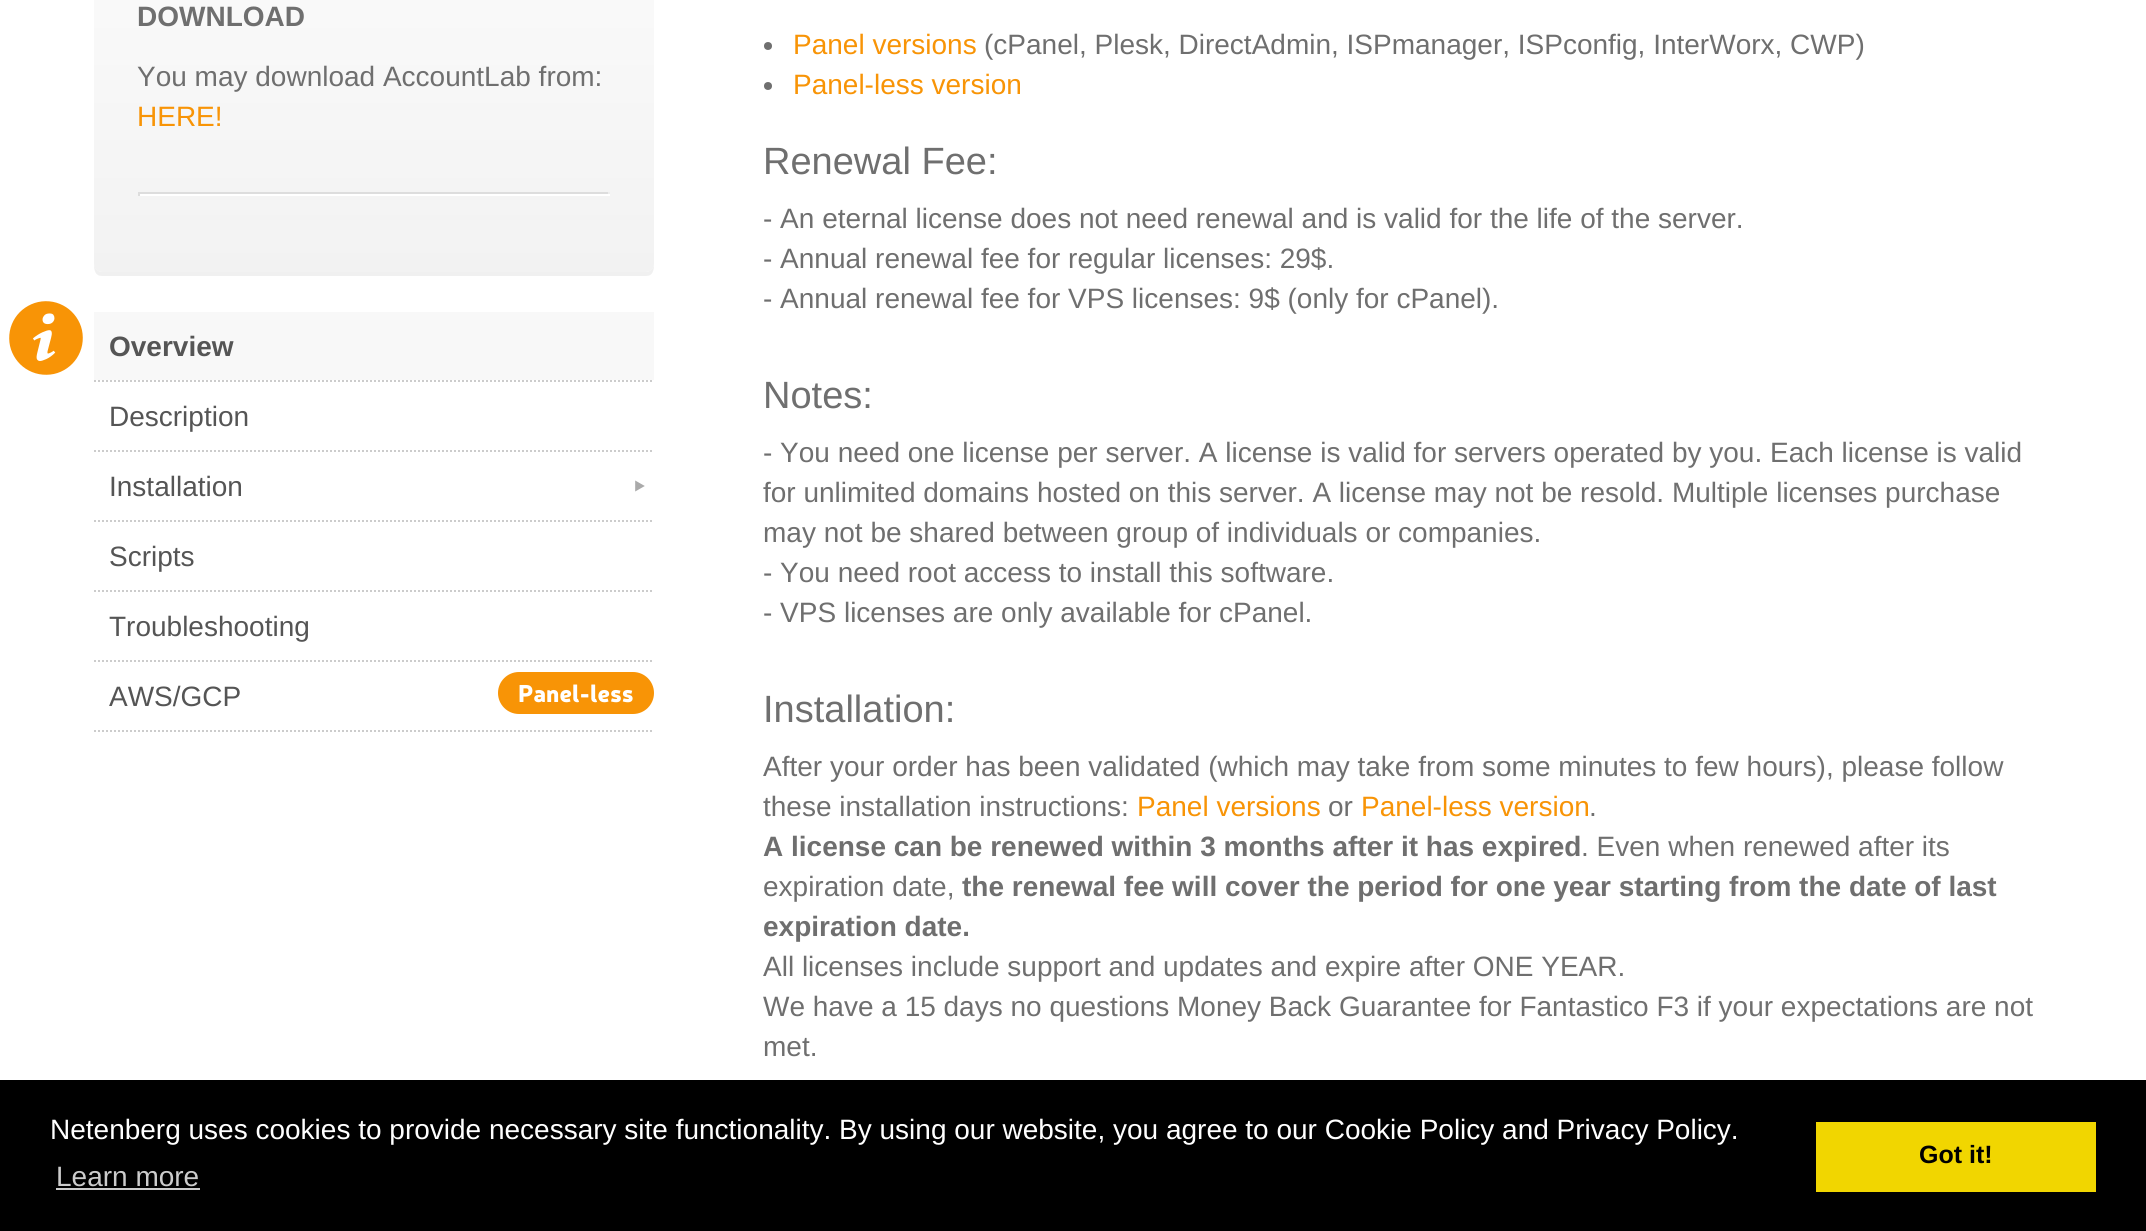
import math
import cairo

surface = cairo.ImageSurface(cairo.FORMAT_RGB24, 2146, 1231)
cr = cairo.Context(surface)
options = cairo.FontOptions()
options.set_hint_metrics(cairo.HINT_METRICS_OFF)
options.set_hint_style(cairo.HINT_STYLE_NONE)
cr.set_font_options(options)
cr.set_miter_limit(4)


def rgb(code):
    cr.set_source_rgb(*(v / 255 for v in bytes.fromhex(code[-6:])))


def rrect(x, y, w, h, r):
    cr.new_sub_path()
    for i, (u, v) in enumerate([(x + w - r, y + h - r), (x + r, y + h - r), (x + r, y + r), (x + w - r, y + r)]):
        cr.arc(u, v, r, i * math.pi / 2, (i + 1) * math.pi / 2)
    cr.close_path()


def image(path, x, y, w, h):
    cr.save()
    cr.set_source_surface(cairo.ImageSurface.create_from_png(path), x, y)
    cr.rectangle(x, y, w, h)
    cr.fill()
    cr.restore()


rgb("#ffffff")
cr.paint()
image("img/1.png", 9, 301, 74, 74)
rgb("#f0f0f0")
cr.new_path()
cr.move_to(94, 264)
cr.curve_to(94, 270, 95, 276, 102, 276)
cr.line_to(646, 276)
cr.curve_to(653, 276, 654, 270, 654, 264)
cr.curve_to(654, 268, 650, 272, 646, 272)
cr.line_to(102, 272)
cr.curve_to(98, 272, 94, 268, 94, 264)
cr.close_path()
cr.fill()
gradient = cairo.LinearGradient(374, -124, 374, 272)
gradient.add_color_stop_rgba(0, 0.98, 0.98, 0.98, 1)
gradient.add_color_stop_rgba(0.25, 0.98, 0.98, 0.98, 1)
gradient.add_color_stop_rgba(1, 0.949, 0.949, 0.949, 1)
cr.set_source(gradient)
cr.new_path()
cr.move_to(104, -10)
cr.line_to(644, -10)
cr.curve_to(649.5, -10, 654, -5.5, 654, 0)
cr.line_to(654, 264)
cr.curve_to(654, 268.5, 650.5, 272, 646, 272)
cr.line_to(102, 272)
cr.curve_to(97.5, 272, 94, 268.5, 94, 264)
cr.line_to(94, 0)
cr.curve_to(94, -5.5, 98.5, -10, 104, -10)
cr.close_path()
cr.fill()
for x, y, w, h, color in [
    (138, 192, 472, 2, "#dddddd"),
    (608, 192, 2, 4, "#eeeeee"),
    (138, 194, 472, 2, "#ffffff"),
    (138, 192, 2, 4, "#dddddd"),
]:
    rgb(color)
    cr.rectangle(x, y, w, h)
    cr.fill()
cr.new_path()
cr.move_to(94, 381)
cr.line_to(654, 381)
rgb("#cccccc")
cr.set_dash([2, 2])
cr.stroke()
rgb("#f8f8f8")
cr.rectangle(94, 312, 560, 68)
cr.fill()
cr.new_path()
cr.move_to(94, 451)
cr.line_to(654, 451)
rgb("#cccccc")
cr.stroke()
cr.new_path()
cr.move_to(94, 521)
cr.line_to(654, 521)
cr.stroke()
image("img/2.png", 635, 480, 10, 12)
cr.new_path()
cr.move_to(94, 591)
cr.line_to(654, 591)
cr.stroke()
cr.new_path()
cr.move_to(94, 661)
cr.line_to(654, 661)
cr.stroke()
cr.new_path()
cr.move_to(94, 731)
cr.line_to(654, 731)
cr.stroke()
rgb("#f89406")
rrect(498, 672, 156, 42, 21)
cr.fill()
rgb("#6f6f6f")
cr.arc(768, 46, 4, 0, 2 * math.pi)
cr.fill()
cr.arc(768, 86, 4, 0, 2 * math.pi)
cr.fill()
for x, y, w, h, color in [
    (0, 1080, 2146, 151, "#000000"),
    (56, 1188, 144, 2, "#cccccc"),
    (1816, 1122, 280, 70, "#f1d600"),
]:
    rgb(color)
    cr.rectangle(x, y, w, h)
    cr.fill()
cr.select_font_face("Liberation Sans", cairo.FONT_SLANT_NORMAL, cairo.FONT_WEIGHT_BOLD)
cr.set_font_size(28)
rgb("#6f6f6f")
cr.move_to(137, 26)
cr.show_text("DOWNLOAD")
cr.select_font_face("Liberation Sans")
cr.move_to(137, 86)
cr.show_text("You may download AccountLab from:")
rgb("#f89406")
cr.move_to(137, 126)
cr.show_text("HERE!")
cr.select_font_face("Liberation Sans", cairo.FONT_SLANT_NORMAL, cairo.FONT_WEIGHT_BOLD)
rgb("#555555")
cr.move_to(109, 356)
cr.show_text("Overview")
cr.select_font_face("Liberation Sans")
for x, y, s in [
    (109, 426, "Description"),
    (109, 496, "Installation"),
    (109, 566, "Scripts"),
    (109, 636, "Troubleshooting"),
    (109, 706, "AWS/GCP"),
]:
    cr.move_to(x, y)
    cr.show_text(s)
cr.select_font_face("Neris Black")
cr.set_font_size(24)
rgb("#ffffff")
cr.move_to(518, 702)
cr.show_text("Panel-less")
cr.select_font_face("Liberation Sans")
cr.set_font_size(28)
rgb("#f89406")
cr.move_to(793, 54)
cr.show_text("Panel versions")
rgb("#6f6f6f")
cr.move_to(984, 54)
cr.show_text("(cPanel, Plesk, DirectAdmin, ISPmanager, ISPconfig, InterWorx, CWP)")
rgb("#f89406")
cr.move_to(793, 94)
cr.show_text("Panel-less version")
cr.set_font_size(38)
rgb("#6f6f6f")
cr.move_to(763, 174)
cr.show_text("Renewal Fee:")
cr.set_font_size(28)
for x, y, s in [
    (763, 228, "- An eternal license does not need renewal and is valid for the life of the server."),
    (763, 268, "- Annual renewal fee for regular licenses: 29$."),
    (763, 308, "- Annual renewal fee for VPS licenses: 9$ (only for cPanel)."),
]:
    cr.move_to(x, y)
    cr.show_text(s)
cr.set_font_size(38)
cr.move_to(763, 408)
cr.show_text("Notes:")
cr.set_font_size(28)
for x, y, s in [
    (763, 462, "- You need one license per server. A license is valid for servers operated by you. Each license is valid"),
    (763, 502, "for unlimited domains hosted on this server. A license may not be resold. Multiple licenses purchase"),
    (763, 542, "may not be shared between group of individuals or companies."),
    (763, 582, "- You need root access to install this software."),
    (763, 622, "- VPS licenses are only available for cPanel."),
]:
    cr.move_to(x, y)
    cr.show_text(s)
cr.set_font_size(38)
cr.move_to(763, 722)
cr.show_text("Installation:")
cr.set_font_size(28)
cr.move_to(763, 776)
cr.show_text("After your order has been validated (which may take from some minutes to few hours), please follow")
cr.move_to(763, 816)
cr.show_text("these installation instructions:")
rgb("#f89406")
cr.move_to(1137, 816)
cr.show_text("Panel versions")
rgb("#6f6f6f")
cr.move_to(1328, 816)
cr.show_text("or")
rgb("#f89406")
cr.move_to(1361, 816)
cr.show_text("Panel-less version")
rgb("#6f6f6f")
cr.move_to(1589, 816)
cr.show_text(".")
cr.select_font_face("Liberation Sans", cairo.FONT_SLANT_NORMAL, cairo.FONT_WEIGHT_BOLD)
cr.move_to(763, 856)
cr.show_text("A license can be renewed within 3 months after it has expired")
cr.select_font_face("Liberation Sans")
cr.move_to(1581, 856)
cr.show_text(". Even when renewed after its")
cr.move_to(763, 896)
cr.show_text("expiration date,")
cr.select_font_face("Liberation Sans", cairo.FONT_SLANT_NORMAL, cairo.FONT_WEIGHT_BOLD)
cr.move_to(962, 896)
cr.show_text("the renewal fee will cover the period for one year starting from the date of last")
cr.move_to(763, 936)
cr.show_text("expiration date.")
cr.select_font_face("Liberation Sans")
for x, y, s in [
    (763, 976, "All licenses include support and updates and expire after ONE YEAR."),
    (763, 1016, "We have a 15 days no questions Money Back Guarantee for Fantastico F3 if your expectations are not"),
    (763, 1056, "met."),
]:
    cr.move_to(x, y)
    cr.show_text(s)
rgb("#ffffff")
cr.move_to(50, 1139)
cr.show_text("Netenberg uses cookies to provide necessary site functionality. By using our website, you agree to our Cookie Policy and Privacy Policy.")
rgb("#cccccc")
cr.move_to(56, 1186)
cr.show_text("Learn more")
cr.select_font_face("Liberation Sans", cairo.FONT_SLANT_NORMAL, cairo.FONT_WEIGHT_BOLD)
cr.set_font_size(25)
rgb("#000000")
cr.move_to(1919, 1163)
cr.show_text("Got it!")
surface.write_to_png("page.png")
